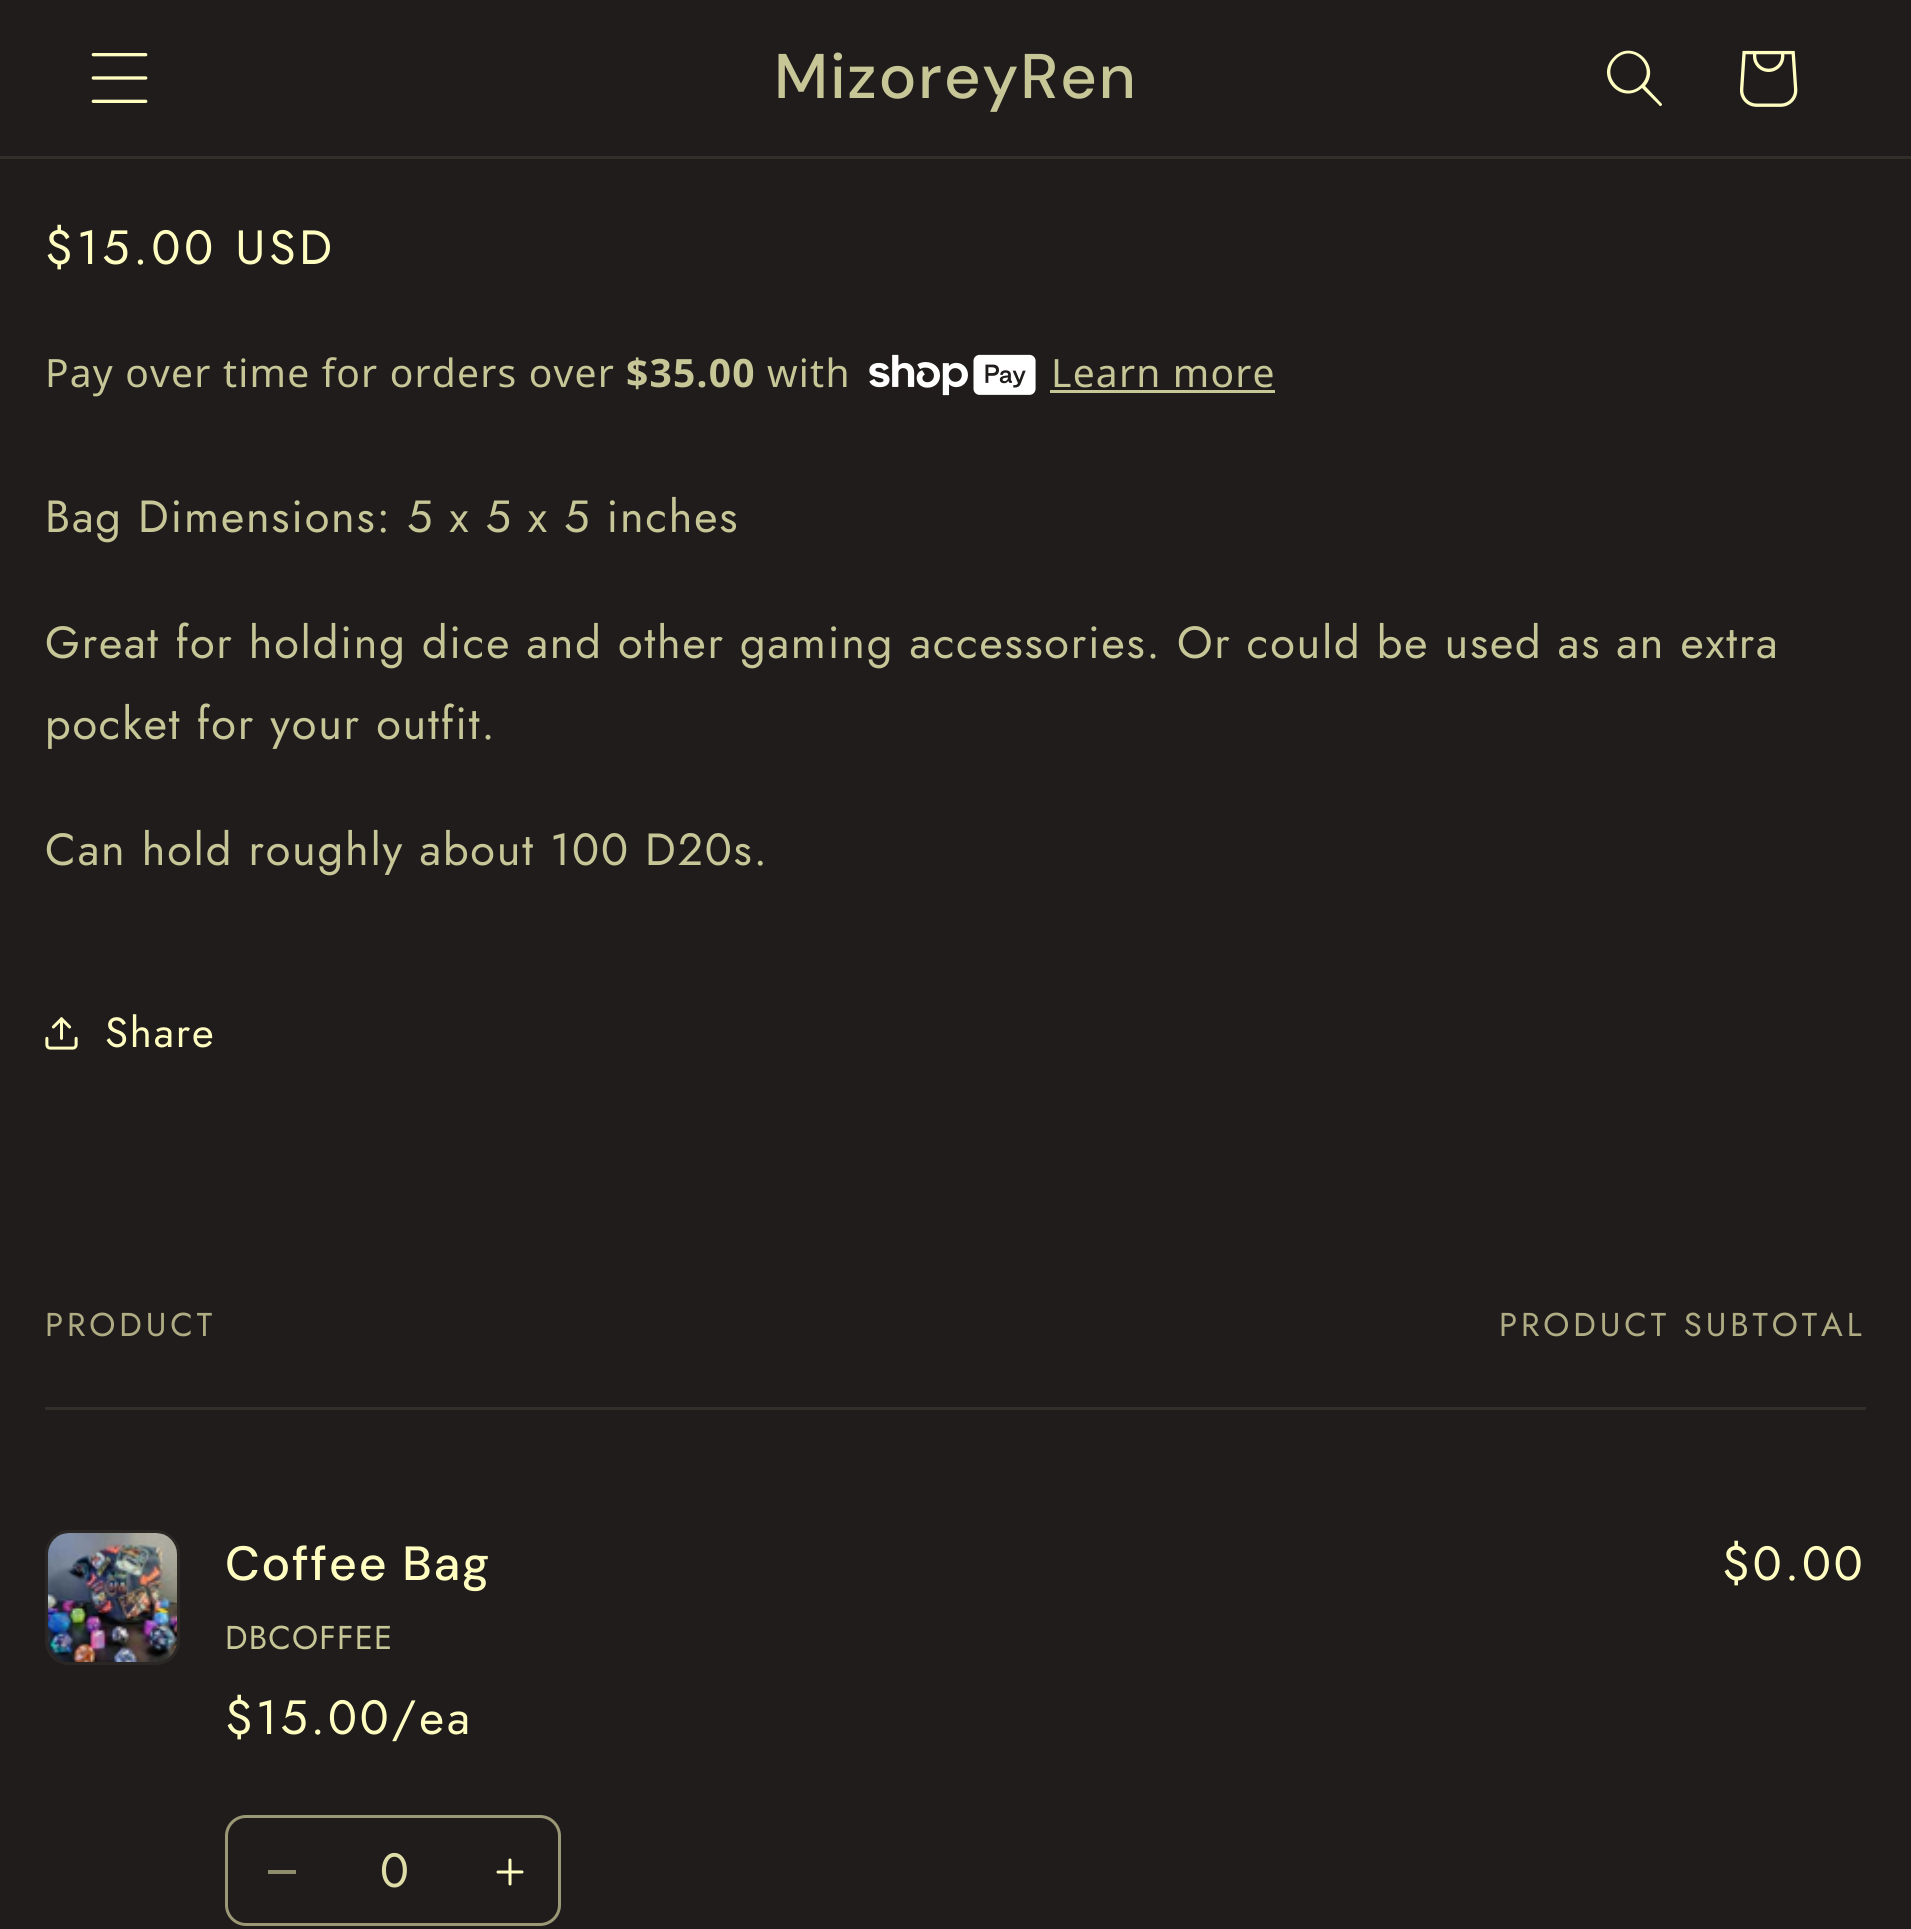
import math
import cairo

surface = cairo.ImageSurface(cairo.FORMAT_RGB24, 1911, 1929)
cr = cairo.Context(surface)
options = cairo.FontOptions()
options.set_hint_metrics(cairo.HINT_METRICS_OFF)
options.set_hint_style(cairo.HINT_STYLE_NONE)
cr.set_font_options(options)
cr.set_miter_limit(4)


def rgb(code):
    cr.set_source_rgb(*(v / 255 for v in bytes.fromhex(code[-6:])))


def tracked(x, y, s, letter, word):
    cr.move_to(x, y)
    for ch in s:
        cr.show_text(ch)
        cr.rel_move_to(letter + word * (ch == ' '), 0)


def rrect(x, y, w, h, r):
    cr.new_sub_path()
    for i, (u, v) in enumerate([(x + w - r, y + h - r), (x + r, y + h - r), (x + r, y + r), (x + w - r, y + r)]):
        cr.arc(u, v, r, i * math.pi / 2, (i + 1) * math.pi / 2)
    cr.close_path()


def image(path, x, y, w, h):
    cr.save()
    cr.set_source_surface(cairo.ImageSurface.create_from_png(path), x, y)
    cr.rectangle(x, y, w, h)
    cr.fill()
    cr.restore()


rgb("#201c1c")
cr.paint()
rgb("#322e29")
cr.rectangle(0, 156, 1911, 3)
cr.fill()
image("img/1.png", 91, 53, 57, 50)
rgb("#fffec0")
cr.set_fill_rule(cairo.FILL_RULE_EVEN_ODD)
cr.new_path()
cr.move_to(1641, 85)
cr.curve_to(1624, 102, 1599, 76, 1616, 59)
cr.curve_to(1633, 42, 1658, 68, 1641, 85)
cr.move_to(1642, 88)
cr.curve_to(1621, 106, 1594, 76, 1614, 57)
cr.curve_to(1633, 38, 1662, 66, 1645, 86)
cr.line_to(1662, 104)
cr.curve_to(1662, 106, 1660, 107, 1659, 105)
cr.close_path()
cr.fill()
image("img/2.png", 1740, 50, 58, 57)
image("img/3.png", 869, 354, 167, 42)
rgb("#c7c697")
cr.rectangle(1050, 390, 225, 3)
cr.fill()
image("img/4.png", 45, 1017, 33, 33)
rgb("#322e29")
cr.rectangle(45, 1407, 1821, 3)
cr.fill()
rrect(46.5, 1531.5, 132, 132, 22.5)
rgb("#2b2724")
cr.set_line_width(3)
cr.stroke()
image("img/5.png", 48, 1533, 129, 129)
rgb("#908d6e")
cr.rectangle(268, 1870, 28, 4)
cr.fill()
image("img/6.png", 496, 1858, 28, 28)
rrect(226.5, 1816.5, 333, 108, 19.5)
rgb("#9b9876")
cr.stroke()
cr.select_font_face("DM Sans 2 Medium")
cr.set_font_size(63)
rgb("#c7c697")
tracked(774, 98, "MizoreyRen", 1.9, 0)
cr.select_font_face("Jost")
cr.set_font_size(48)
rgb("#fffec0")
tracked(45, 264, "$15.00 USD", 3.9, 0)
cr.select_font_face("Noto Sans")
cr.set_font_size(39)
rgb("#c7c697")
tracked(45, 387, "Pay over time for orders over", 1.2, 0)
cr.select_font_face("Noto Sans", cairo.FONT_SLANT_NORMAL, cairo.FONT_WEIGHT_BOLD)
tracked(626, 387, "$35.00", 1.2, 0)
cr.select_font_face("Noto Sans")
tracked(767, 387, "with", 1.2, 0)
tracked(1051, 387, "Learn more", 1.2, 0)
cr.select_font_face("Jost")
cr.set_font_size(45)
for x, y, s in [
    (45, 532, "Bag Dimensions: 5 x 5 x 5 inches"),
    (45, 658, "Great for holding dice and other gaming accessories. Or could be used as an extra"),
    (45, 739, "pocket for your outfit."),
    (45, 865, "Can hold roughly about 100 D20s."),
]:
    tracked(x, y, s, 1.8, 0)
cr.set_font_size(42)
rgb("#fffec0")
tracked(105, 1047, "Share", 1.8, 0)
cr.set_font_size(33)
rgb("#afac84")
tracked(45, 1336, "PRODUCT", 3.9, 0)
tracked(1499, 1336, "PRODUCT SUBTOTAL", 3.9, 0)
cr.select_font_face("DM Sans Medium")
cr.set_font_size(48)
rgb("#fffec0")
tracked(225, 1580, "Coffee Bag", 1.8, 0)
cr.select_font_face("Jost")
cr.set_font_size(33)
rgb("#c7c697")
tracked(225, 1649, "DBCOFFEE", 1.2, 0)
cr.set_font_size(48)
rgb("#fffec0")
tracked(225, 1734, "$15.00/ea", 3, 0)
tracked(1722, 1580, "$0.00", 3, 0)
rgb("#dedca7")
cr.move_to(380, 1887)
cr.show_text("0")
surface.write_to_png("page.png")
